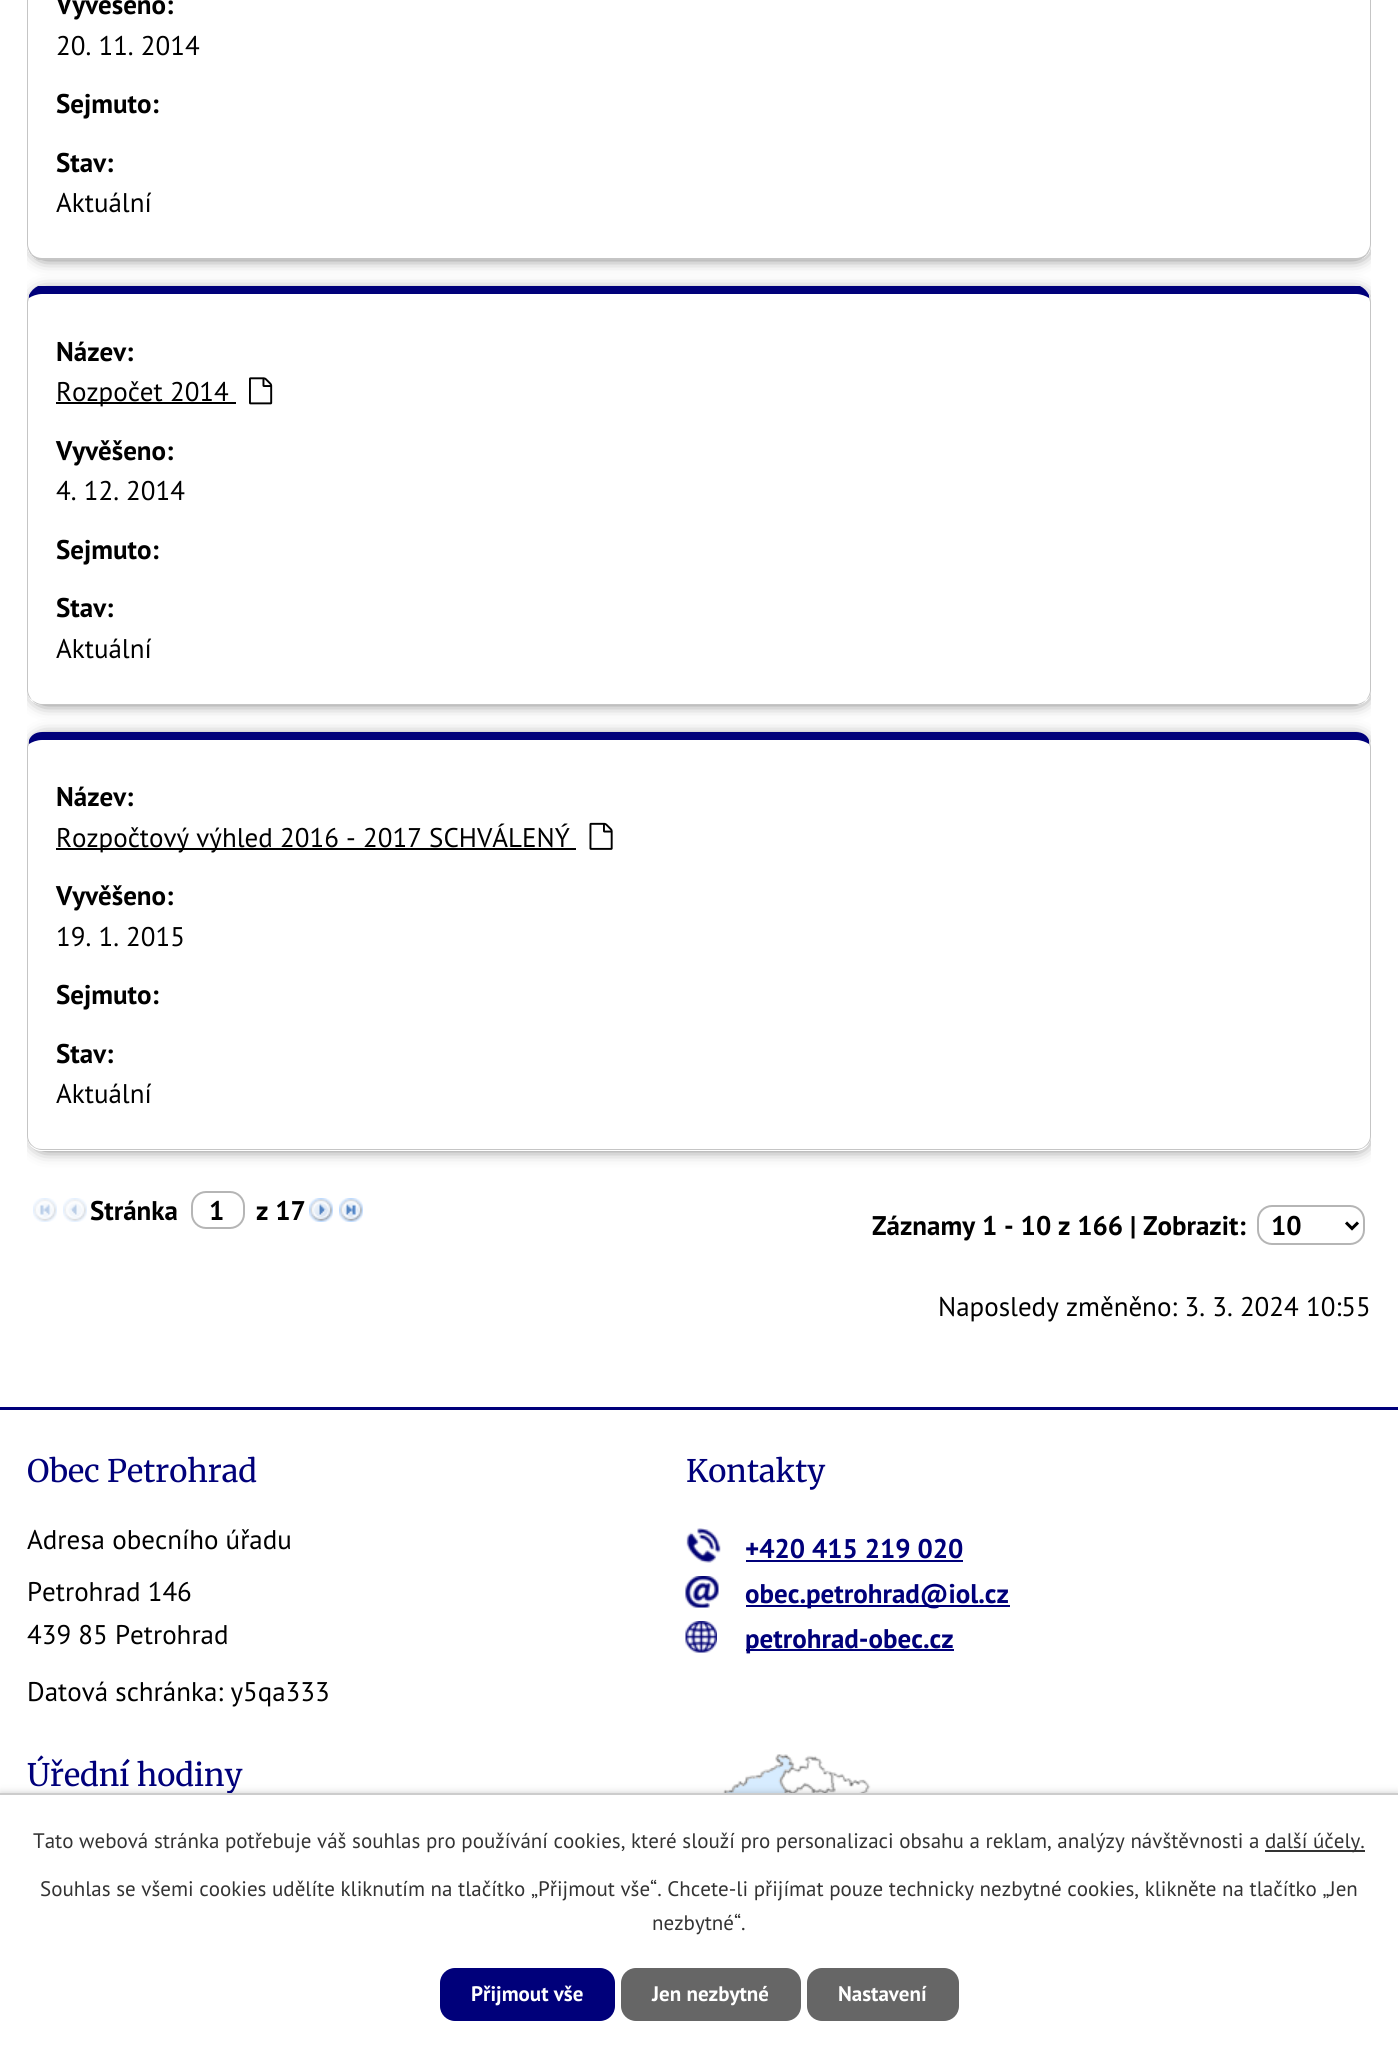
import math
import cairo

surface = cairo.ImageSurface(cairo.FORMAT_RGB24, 1398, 2048)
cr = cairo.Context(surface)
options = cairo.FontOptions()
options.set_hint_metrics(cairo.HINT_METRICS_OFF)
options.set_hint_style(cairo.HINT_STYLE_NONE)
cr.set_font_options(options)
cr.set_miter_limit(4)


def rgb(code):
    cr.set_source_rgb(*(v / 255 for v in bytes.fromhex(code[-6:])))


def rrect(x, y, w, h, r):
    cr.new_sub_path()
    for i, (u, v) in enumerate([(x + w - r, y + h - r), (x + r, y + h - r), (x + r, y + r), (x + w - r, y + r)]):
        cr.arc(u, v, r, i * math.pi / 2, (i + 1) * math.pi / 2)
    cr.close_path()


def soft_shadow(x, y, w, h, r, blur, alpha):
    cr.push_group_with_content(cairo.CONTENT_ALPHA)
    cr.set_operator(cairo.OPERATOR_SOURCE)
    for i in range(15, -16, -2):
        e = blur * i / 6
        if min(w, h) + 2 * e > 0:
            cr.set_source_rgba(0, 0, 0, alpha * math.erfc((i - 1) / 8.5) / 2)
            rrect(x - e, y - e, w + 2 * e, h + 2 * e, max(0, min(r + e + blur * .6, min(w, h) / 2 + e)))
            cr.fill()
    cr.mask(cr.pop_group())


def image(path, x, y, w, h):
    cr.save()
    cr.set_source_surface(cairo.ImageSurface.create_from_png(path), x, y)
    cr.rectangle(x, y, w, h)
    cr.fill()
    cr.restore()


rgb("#ffffff")
cr.paint()
cr.save()
cr.rectangle(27, 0, 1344, 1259)
cr.clip()
cr.set_fill_rule(cairo.FILL_RULE_EVEN_ODD)
cr.new_path()
cr.move_to(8, 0)
cr.line_to(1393, 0)
cr.line_to(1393, 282)
cr.line_to(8, 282)
cr.close_path()
cr.move_to(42, -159)
cr.line_to(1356, -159)
cr.curve_to(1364.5, -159, 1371, -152.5, 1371, -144)
cr.line_to(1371, 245)
cr.curve_to(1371, 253.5, 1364.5, 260, 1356, 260)
cr.line_to(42, 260)
cr.curve_to(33.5, 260, 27, 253.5, 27, 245)
cr.line_to(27, -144)
cr.curve_to(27, -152.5, 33.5, -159, 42, -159)
cr.close_path()
cr.clip()
rgb("#000000")
soft_shadow(36, -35, 1329, 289, 8, 9, 1)
cr.restore()
rgb("#c5c5c5")
cr.new_path()
cr.move_to(1371, 244)
cr.line_to(1371, -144)
cr.curve_to(1371, -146, 1370, -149, 1369, -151)
cr.line_to(1369, -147)
cr.line_to(1370, -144)
cr.line_to(1370, 244)
cr.curve_to(1370, 248, 1368, 251, 1366, 254)
cr.line_to(1367, 255)
cr.curve_to(1369, 252, 1371, 248, 1371, 244)
cr.close_path()
cr.fill()
cr.new_path()
cr.move_to(38, 260)
cr.curve_to(36, 259, 33, 257, 31, 255)
cr.line_to(32, 254)
cr.curve_to(35, 257, 39, 258, 42, 258)
cr.line_to(1356, 258)
cr.curve_to(1359, 258, 1363, 257, 1366, 254)
cr.line_to(1367, 255)
cr.curve_to(1365, 257, 1362, 259, 1360, 260)
cr.close_path()
cr.fill()
cr.new_path()
cr.move_to(27, -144)
cr.line_to(27, 244)
cr.curve_to(27, 248, 29, 252, 31, 255)
cr.line_to(32, 254)
cr.curve_to(30, 251, 28, 248, 28, 244)
cr.line_to(28, -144)
cr.line_to(29, -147)
cr.line_to(29, -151)
cr.curve_to(28, -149, 27, -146, 27, -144)
cr.close_path()
cr.fill()
cr.save()
cr.rectangle(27, 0, 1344, 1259)
cr.clip()
cr.set_fill_rule(cairo.FILL_RULE_EVEN_ODD)
cr.new_path()
cr.move_to(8, 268)
cr.line_to(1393, 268)
cr.line_to(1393, 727)
cr.line_to(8, 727)
cr.close_path()
cr.move_to(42, 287)
cr.line_to(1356, 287)
cr.curve_to(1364.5, 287, 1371, 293.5, 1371, 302)
cr.line_to(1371, 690)
cr.curve_to(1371, 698.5, 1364.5, 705, 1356, 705)
cr.line_to(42, 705)
cr.curve_to(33.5, 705, 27, 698.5, 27, 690)
cr.line_to(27, 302)
cr.curve_to(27, 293.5, 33.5, 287, 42, 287)
cr.close_path()
cr.clip()
rgb("#000000")
soft_shadow(36, 296, 1329, 403, 8, 9, 1)
cr.restore()
rgb("#00007a")
cr.new_path()
cr.move_to(42, 294)
cr.curve_to(37, 294, 32, 296, 29, 298)
cr.line_to(29, 295)
cr.curve_to(31, 291, 34, 288, 38, 286)
cr.line_to(1360, 286)
cr.curve_to(1364, 288, 1367, 291, 1369, 295)
cr.line_to(1369, 298)
cr.curve_to(1366, 296, 1361, 294, 1356, 294)
cr.close_path()
cr.fill()
rgb("#c5c5c5")
cr.new_path()
cr.move_to(1371, 690)
cr.line_to(1371, 302)
cr.curve_to(1371, 299, 1370, 297, 1369, 295)
cr.line_to(1369, 298)
cr.line_to(1370, 302)
cr.line_to(1370, 690)
cr.curve_to(1370, 694, 1368, 697, 1366, 700)
cr.curve_to(1369, 698, 1371, 694, 1371, 690)
cr.close_path()
cr.fill()
cr.new_path()
cr.move_to(42, 705)
cr.line_to(1356, 705)
cr.curve_to(1360, 705, 1364, 703, 1366, 700)
cr.curve_to(1363, 702, 1360, 704, 1356, 704)
cr.line_to(42, 704)
cr.curve_to(38, 704, 35, 702, 32, 700)
cr.curve_to(34, 703, 38, 705, 42, 705)
cr.close_path()
cr.fill()
cr.new_path()
cr.move_to(27, 302)
cr.line_to(27, 690)
cr.curve_to(27, 694, 29, 698, 32, 700)
cr.curve_to(30, 697, 28, 694, 28, 690)
cr.line_to(28, 302)
cr.line_to(29, 298)
cr.line_to(29, 295)
cr.curve_to(28, 297, 27, 299, 27, 302)
cr.close_path()
cr.fill()
rgb("#000000")
cr.rectangle(56, 402, 180, 2)
cr.fill()
image("img/1.png", 249, 377, 24, 28)
cr.save()
cr.rectangle(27, 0, 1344, 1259)
cr.clip()
cr.set_fill_rule(cairo.FILL_RULE_EVEN_ODD)
cr.new_path()
cr.move_to(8, 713)
cr.line_to(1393, 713)
cr.line_to(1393, 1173)
cr.line_to(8, 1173)
cr.close_path()
cr.move_to(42, 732)
cr.line_to(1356, 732)
cr.curve_to(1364.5, 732, 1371, 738.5, 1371, 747)
cr.line_to(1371, 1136)
cr.curve_to(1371, 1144.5, 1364.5, 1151, 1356, 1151)
cr.line_to(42, 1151)
cr.curve_to(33.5, 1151, 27, 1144.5, 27, 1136)
cr.line_to(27, 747)
cr.curve_to(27, 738.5, 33.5, 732, 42, 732)
cr.close_path()
cr.clip()
rgb("#000000")
soft_shadow(36, 741, 1329, 404, 8, 9, 1)
cr.restore()
rgb("#00007a")
cr.new_path()
cr.move_to(42, 732)
cr.curve_to(36, 732, 31, 735, 29, 740)
cr.line_to(29, 744)
cr.curve_to(32, 742, 37, 740, 42, 740)
cr.line_to(1356, 740)
cr.curve_to(1361, 740, 1366, 742, 1369, 744)
cr.line_to(1369, 740)
cr.curve_to(1367, 735, 1362, 732, 1356, 732)
cr.close_path()
cr.fill()
rgb("#c5c5c5")
cr.new_path()
cr.move_to(1371, 1136)
cr.line_to(1371, 747)
cr.curve_to(1371, 745, 1370, 742, 1369, 740)
cr.line_to(1369, 744)
cr.curve_to(1369, 745, 1370, 746, 1370, 747)
cr.line_to(1370, 1136)
cr.curve_to(1370, 1140, 1368, 1143, 1366, 1145)
cr.line_to(1366, 1146)
cr.curve_to(1369, 1144, 1371, 1140, 1371, 1136)
cr.close_path()
cr.fill()
cr.new_path()
cr.move_to(1366, 1146)
cr.curve_to(1364, 1148, 1360, 1150, 1356, 1150)
cr.line_to(42, 1150)
cr.curve_to(38, 1150, 34, 1148, 32, 1146)
cr.line_to(32, 1145)
cr.curve_to(35, 1148, 38, 1149, 42, 1149)
cr.line_to(1356, 1149)
cr.curve_to(1360, 1149, 1363, 1148, 1366, 1145)
cr.close_path()
cr.fill()
cr.new_path()
cr.move_to(27, 747)
cr.line_to(27, 1136)
cr.curve_to(27, 1140, 29, 1144, 32, 1146)
cr.line_to(32, 1145)
cr.curve_to(30, 1143, 28, 1140, 28, 1136)
cr.line_to(28, 747)
cr.curve_to(28, 746, 29, 745, 29, 744)
cr.line_to(29, 740)
cr.curve_to(28, 742, 27, 745, 27, 747)
cr.close_path()
cr.fill()
rgb("#000000")
cr.rectangle(56, 848, 520, 2)
cr.fill()
image("img/2.png", 589, 822, 24, 28)
image("img/3.png", 33, 1198, 24, 24)
image("img/4.png", 63, 1198, 24, 24)
rrect(192, 1192, 52, 36, 14)
rgb("#b5b5b5")
cr.stroke()
image("img/5.png", 309, 1198, 24, 24)
image("img/6.png", 339, 1198, 24, 24)
rrect(1258, 1206, 106, 38, 14)
cr.stroke()
cr.new_path()
cr.move_to(1346, 1222.5)
cr.line_to(1352, 1228.5)
cr.line_to(1358, 1222.5)
rgb("#000000")
cr.set_line_width(3)
cr.stroke()
rgb("#00007a")
cr.rectangle(0, 1407, 1398, 3)
cr.fill()
image("img/7.png", 686, 1528, 35, 35)
cr.rectangle(746, 1560, 217, 2)
cr.fill()
image("img/8.png", 685, 1576, 34, 32)
cr.rectangle(746, 1605, 264, 2)
cr.fill()
image("img/9.png", 685, 1621, 32, 32)
cr.rectangle(746, 1649, 208, 2)
cr.fill()
image("img/10.png", 723, 1754, 148, 39)
rgb("#000000")
soft_shadow(0, 1793, 1398, 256, 0, 4, 0.2)
rgb("#ffffff")
cr.rectangle(0, 1795, 1398, 253)
cr.fill()
rgb("#333333")
cr.rectangle(1265, 1850, 100, 2)
cr.fill()
rgb("#00007a")
rrect(440, 1968, 175, 53, 15)
cr.fill()
rgb("#666666")
rrect(621, 1968, 180, 53, 15)
cr.fill()
rrect(807, 1968, 152, 53, 15)
cr.fill()
cr.select_font_face("PT Sans", cairo.FONT_SLANT_NORMAL, cairo.FONT_WEIGHT_BOLD)
cr.set_font_size(27)
rgb("#000000")
cr.move_to(56, 14)
cr.show_text("Vyvěšeno:")
cr.select_font_face("PT Sans")
cr.move_to(56, 55)
cr.show_text("20. 11. 2014")
cr.select_font_face("PT Sans", cairo.FONT_SLANT_NORMAL, cairo.FONT_WEIGHT_BOLD)
cr.move_to(56, 113)
cr.show_text("Sejmuto:")
cr.move_to(56, 172)
cr.show_text("Stav:")
cr.select_font_face("PT Sans")
cr.move_to(56, 212)
cr.show_text("Aktuální")
cr.select_font_face("PT Sans", cairo.FONT_SLANT_NORMAL, cairo.FONT_WEIGHT_BOLD)
cr.move_to(56, 361)
cr.show_text("Název:")
cr.select_font_face("PT Sans")
cr.move_to(56, 401)
cr.show_text("Rozpočet 2014")
cr.select_font_face("PT Sans", cairo.FONT_SLANT_NORMAL, cairo.FONT_WEIGHT_BOLD)
cr.move_to(56, 460)
cr.show_text("Vyvěšeno:")
cr.select_font_face("PT Sans")
cr.move_to(56, 500)
cr.show_text("4. 12. 2014")
cr.select_font_face("PT Sans", cairo.FONT_SLANT_NORMAL, cairo.FONT_WEIGHT_BOLD)
cr.move_to(56, 559)
cr.show_text("Sejmuto:")
cr.move_to(56, 617)
cr.show_text("Stav:")
cr.select_font_face("PT Sans")
cr.move_to(56, 658)
cr.show_text("Aktuální")
cr.select_font_face("PT Sans", cairo.FONT_SLANT_NORMAL, cairo.FONT_WEIGHT_BOLD)
cr.move_to(56, 806)
cr.show_text("Název:")
cr.select_font_face("PT Sans")
cr.move_to(56, 847)
cr.show_text("Rozpočtový výhled 2016 - 2017 SCHVÁLENÝ")
cr.select_font_face("PT Sans", cairo.FONT_SLANT_NORMAL, cairo.FONT_WEIGHT_BOLD)
cr.move_to(56, 905)
cr.show_text("Vyvěšeno:")
cr.select_font_face("PT Sans")
cr.move_to(56, 946)
cr.show_text("19. 1. 2015")
cr.select_font_face("PT Sans", cairo.FONT_SLANT_NORMAL, cairo.FONT_WEIGHT_BOLD)
cr.move_to(56, 1004)
cr.show_text("Sejmuto:")
cr.move_to(56, 1063)
cr.show_text("Stav:")
cr.select_font_face("PT Sans")
cr.move_to(56, 1103)
cr.show_text("Aktuální")
cr.select_font_face("PT Sans", cairo.FONT_SLANT_NORMAL, cairo.FONT_WEIGHT_BOLD)
for x, y, s in [
    (90, 1220, "Stránka"),
    (209, 1220, "1"),
    (256, 1220, "z 17"),
    (872, 1235, "Záznamy 1 - 10 z 166 | Zobrazit:"),
    (1271, 1235, "10"),
]:
    cr.move_to(x, y)
    cr.show_text(s)
cr.select_font_face("PT Sans")
cr.move_to(938, 1316)
cr.show_text("Naposledy změněno: 3. 3. 2024 10:55")
cr.select_font_face("Merriweather")
cr.set_font_size(31)
rgb("#00007a")
cr.move_to(27, 1482)
cr.show_text("Obec Petrohrad")
cr.select_font_face("PT Sans")
cr.set_font_size(27)
rgb("#000000")
for x, y, s in [
    (27, 1549, "Adresa obecního úřadu"),
    (27, 1601, "Petrohrad 146"),
    (27, 1644, "439 85 Petrohrad"),
    (27, 1701, "Datová schránka: y5qa333"),
]:
    cr.move_to(x, y)
    cr.show_text(s)
cr.select_font_face("Merriweather")
cr.set_font_size(31)
rgb("#00007a")
cr.move_to(686, 1482)
cr.show_text("Kontakty")
cr.select_font_face("PT Sans", cairo.FONT_SLANT_NORMAL, cairo.FONT_WEIGHT_BOLD)
cr.set_font_size(27)
for x, y, s in [
    (745, 1558, "+420 415 219 020"),
    (745, 1603, "obec.petrohrad@iol.cz"),
    (745, 1648, "petrohrad-obec.cz"),
]:
    cr.move_to(x, y)
    cr.show_text(s)
cr.select_font_face("Merriweather")
cr.set_font_size(31)
cr.move_to(27, 1786)
cr.show_text("Úřední hodiny")
rgb("#cccccc")
cr.rectangle(0, 1793, 1398, 2)
cr.fill()
cr.select_font_face("PT Sans")
cr.set_font_size(21)
rgb("#333333")
for x, y, s in [
    (33, 1848, "Tato webová stránka potřebuje váš souhlas pro používání cookies, které slouží pro personalizaci obsahu a reklam, analýzy návštěvnosti a"),
    (1265, 1848, "další účely."),
    (40, 1896, "Souhlas se všemi cookies udělíte kliknutím na tlačítko „Přijmout vše“. Chcete-li přijímat pouze technicky nezbytné cookies, klikněte na tlačítko „Jen"),
    (652, 1930, "nezbytné“."),
]:
    cr.move_to(x, y)
    cr.show_text(s)
cr.select_font_face("PT Sans", cairo.FONT_SLANT_NORMAL, cairo.FONT_WEIGHT_BOLD)
rgb("#ffffff")
for x, y, s in [
    (471, 2001, "Přijmout vše"),
    (652, 2001, "Jen nezbytné"),
    (838, 2001, "Nastavení"),
]:
    cr.move_to(x, y)
    cr.show_text(s)
surface.write_to_png("page.png")
